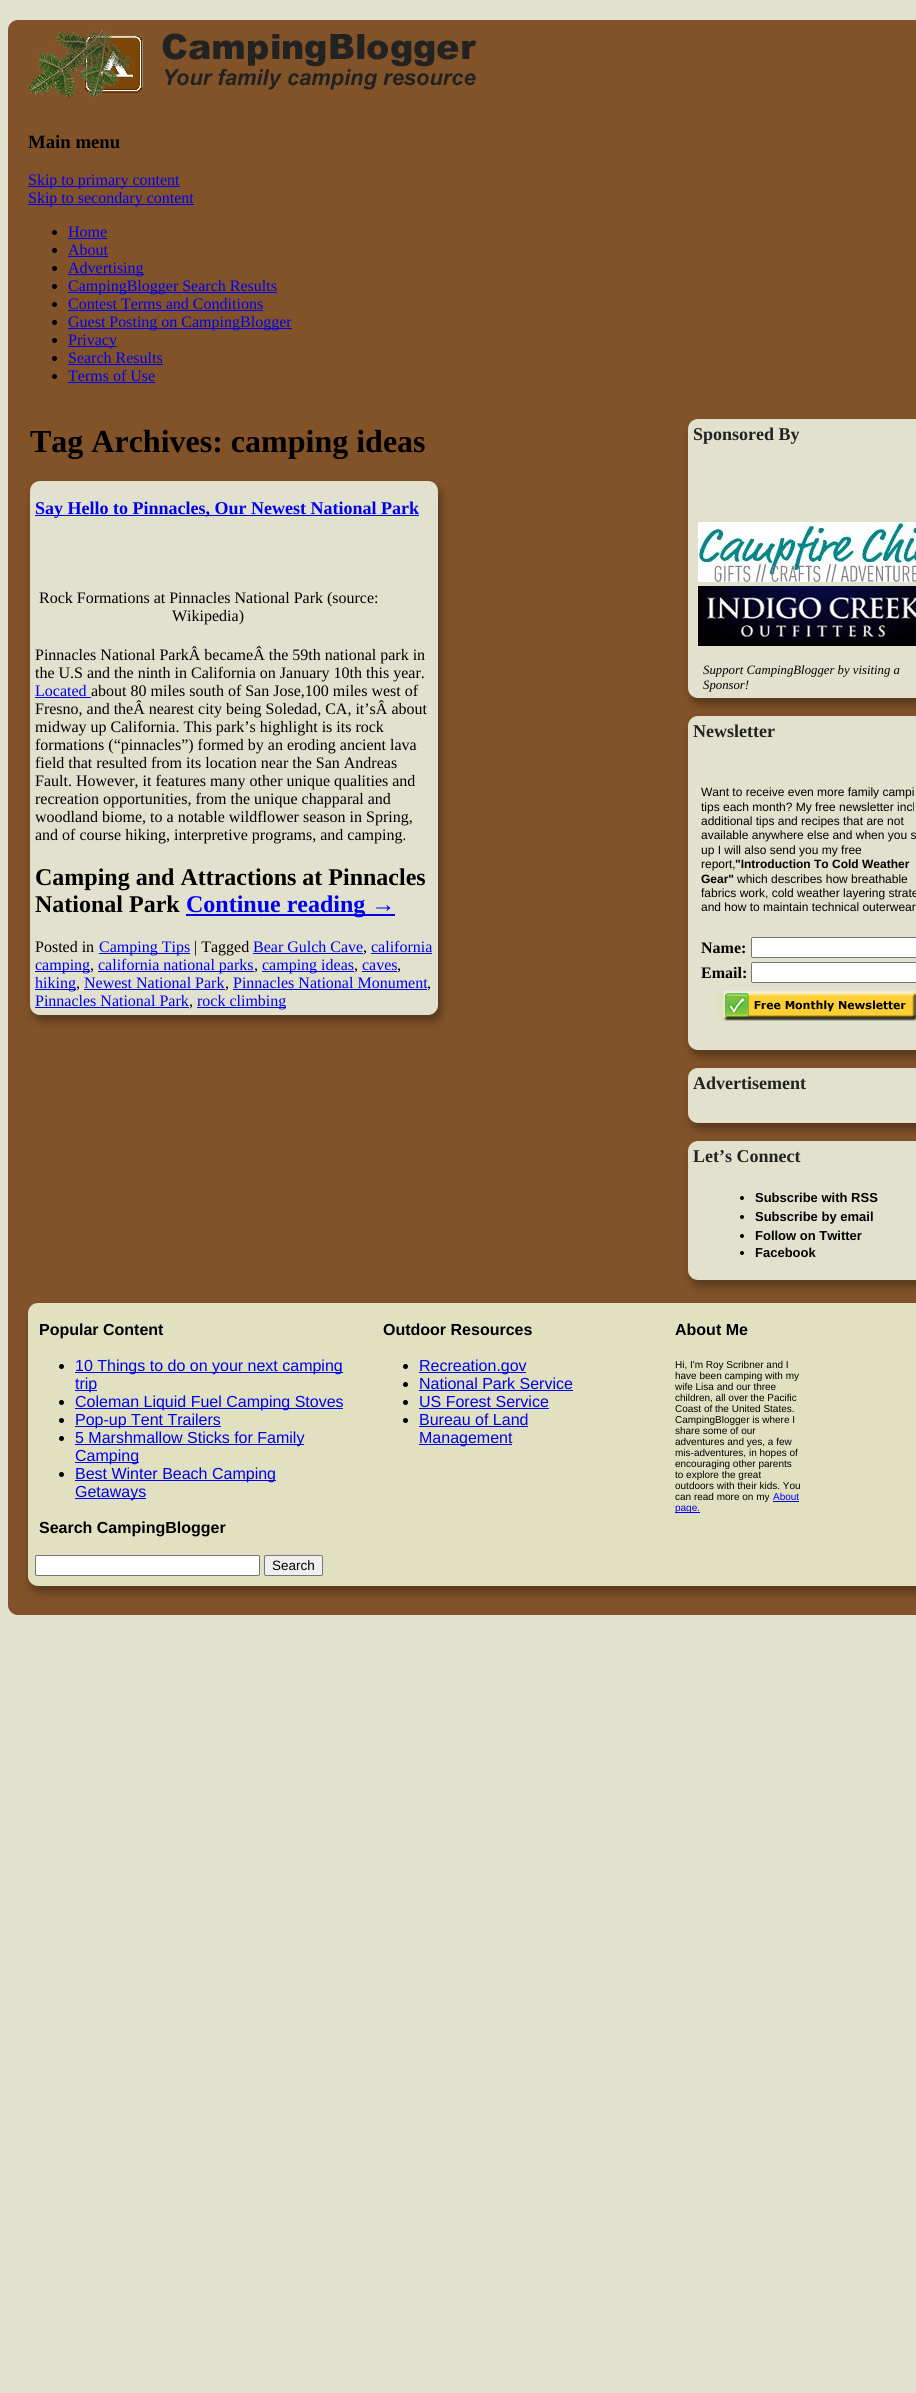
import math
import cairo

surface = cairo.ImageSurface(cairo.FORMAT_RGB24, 916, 2393)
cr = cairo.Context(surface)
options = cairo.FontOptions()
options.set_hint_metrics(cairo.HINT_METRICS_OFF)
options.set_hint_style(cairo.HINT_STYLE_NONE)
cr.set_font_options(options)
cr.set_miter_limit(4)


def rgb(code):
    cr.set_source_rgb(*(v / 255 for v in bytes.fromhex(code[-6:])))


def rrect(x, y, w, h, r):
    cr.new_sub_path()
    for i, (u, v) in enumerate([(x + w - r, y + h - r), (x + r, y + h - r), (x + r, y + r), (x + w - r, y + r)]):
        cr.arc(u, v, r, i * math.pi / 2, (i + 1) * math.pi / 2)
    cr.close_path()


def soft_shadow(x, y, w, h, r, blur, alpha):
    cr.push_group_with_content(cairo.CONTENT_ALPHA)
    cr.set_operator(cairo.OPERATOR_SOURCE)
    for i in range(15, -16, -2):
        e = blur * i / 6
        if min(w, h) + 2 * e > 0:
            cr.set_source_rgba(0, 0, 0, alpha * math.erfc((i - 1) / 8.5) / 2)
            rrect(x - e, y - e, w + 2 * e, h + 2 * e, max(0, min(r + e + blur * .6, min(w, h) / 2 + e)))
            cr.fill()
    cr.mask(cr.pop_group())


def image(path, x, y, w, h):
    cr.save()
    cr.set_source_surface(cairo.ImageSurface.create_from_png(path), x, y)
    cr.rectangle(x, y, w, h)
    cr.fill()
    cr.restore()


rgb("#e1e1cd")
cr.paint()
rgb("#825229")
rrect(8, 20, 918, 1595, 10)
cr.fill()
image("img/1.png", 28, 30, 449, 68)
rgb("#0000ee")
cr.rectangle(28, 186, 152, 1)
cr.fill()
cr.rectangle(28, 204, 166, 1)
cr.fill()
rgb("#000000")
cr.arc(54.5, 232.5, 2.5, 0, 2 * math.pi)
cr.fill()
rgb("#0000ee")
cr.rectangle(68, 238, 39, 1)
cr.fill()
rgb("#000000")
cr.arc(54.5, 250.5, 2.5, 0, 2 * math.pi)
cr.fill()
rgb("#0000ee")
cr.rectangle(68, 256, 40, 1)
cr.fill()
rgb("#000000")
cr.arc(54.5, 268.5, 2.5, 0, 2 * math.pi)
cr.fill()
rgb("#0000ee")
cr.rectangle(68, 274, 76, 1)
cr.fill()
rgb("#000000")
cr.arc(54.5, 286.5, 2.5, 0, 2 * math.pi)
cr.fill()
rgb("#0000ee")
cr.rectangle(68, 292, 209, 1)
cr.fill()
rgb("#000000")
cr.arc(54.5, 304.5, 2.5, 0, 2 * math.pi)
cr.fill()
rgb("#0000ee")
cr.rectangle(68, 310, 195, 1)
cr.fill()
rgb("#000000")
cr.arc(54.5, 322.5, 2.5, 0, 2 * math.pi)
cr.fill()
rgb("#0000ee")
cr.rectangle(68, 328, 224, 1)
cr.fill()
rgb("#000000")
cr.arc(54.5, 340.5, 2.5, 0, 2 * math.pi)
cr.fill()
rgb("#0000ee")
cr.rectangle(68, 346, 49, 1)
cr.fill()
rgb("#000000")
cr.arc(54.5, 358.5, 2.5, 0, 2 * math.pi)
cr.fill()
rgb("#0000ee")
cr.rectangle(68, 364, 95, 1)
cr.fill()
rgb("#000000")
cr.arc(54.5, 376.5, 2.5, 0, 2 * math.pi)
cr.fill()
rgb("#0000ee")
cr.rectangle(68, 382, 87, 1)
cr.fill()
rgb("#000000")
soft_shadow(32, 486, 410, 536, 11, 4, 0.3)
rgb("#e1e1cd")
rrect(30, 481, 408, 534, 10)
cr.fill()
for x, y, w, h, color in [
    (35, 515, 384, 1, "#0000ee"),
    (35, 697, 56, 1, "#0000ee"),
    (186, 914, 209, 2, "#0000ee"),
    (99, 953, 91, 1, "#0000ee"),
    (253, 953, 110, 1, "#0000ee"),
    (371, 953, 61, 1, "#0000ee"),
    (35, 971, 55, 1, "#0000ee"),
    (98, 971, 156, 1, "#0000ee"),
    (262, 971, 92, 1, "#0000ee"),
    (362, 971, 35, 1, "#0000ee"),
    (35, 989, 41, 1, "#0000ee"),
    (84, 989, 141, 1, "#0000ee"),
    (233, 989, 194, 1, "#0000ee"),
    (35, 1007, 154, 1, "#0000ee"),
    (197, 1007, 89, 1, "#0000ee"),
]:
    rgb(color)
    cr.rectangle(x, y, w, h)
    cr.fill()
rgb("#000000")
soft_shadow(690, 424, 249, 281, 11, 4, 0.3)
rgb("#e1e1cd")
rrect(688, 419, 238, 279, 10)
cr.fill()
image("img/2.png", 698, 522, 218, 60)
image("img/3.png", 698, 586, 218, 60)
rgb("#000000")
soft_shadow(690, 721, 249, 336, 11, 4, 0.3)
rgb("#e1e1cd")
rrect(688, 716, 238, 334, 10)
cr.fill()
rgb("#ffffff")
rrect(751.5, 937.5, 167, 20, 1.5)
cr.fill_preserve()
rgb("#767676")
cr.set_line_width(1)
cr.stroke()
rgb("#ffffff")
rrect(751.5, 962.5, 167, 20, 1.5)
cr.fill_preserve()
rgb("#767676")
cr.stroke()
image("img/4.png", 718, 991, 198, 30)
rgb("#000000")
soft_shadow(690, 1073, 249, 57, 11, 4, 0.3)
rgb("#e1e1cd")
rrect(688, 1068, 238, 55, 10)
cr.fill()
rgb("#000000")
soft_shadow(690, 1146, 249, 141, 11, 4, 0.3)
rgb("#e1e1cd")
rrect(688, 1141, 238, 139, 10)
cr.fill()
rgb("#000000")
cr.arc(742, 1198, 2, 0, 2 * math.pi)
cr.fill()
cr.arc(742, 1217, 2, 0, 2 * math.pi)
cr.fill()
cr.arc(742, 1236, 2, 0, 2 * math.pi)
cr.fill()
cr.arc(742, 1253, 2, 0, 2 * math.pi)
cr.fill()
rgb("#000000")
soft_shadow(30, 1308, 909, 285, 11, 4, 0.3)
rgb("#e1e1c2")
rrect(28, 1303, 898, 283, 10)
cr.fill()
rgb("#000000")
cr.arc(61.5, 1366.5, 2.5, 0, 2 * math.pi)
cr.fill()
rgb("#0000ee")
cr.rectangle(75, 1372, 268, 1)
cr.fill()
cr.rectangle(75, 1390, 22, 1)
cr.fill()
rgb("#000000")
cr.arc(61.5, 1402.5, 2.5, 0, 2 * math.pi)
cr.fill()
rgb("#0000ee")
cr.rectangle(75, 1408, 268, 1)
cr.fill()
rgb("#000000")
cr.arc(61.5, 1420.5, 2.5, 0, 2 * math.pi)
cr.fill()
rgb("#0000ee")
cr.rectangle(75, 1426, 146, 1)
cr.fill()
rgb("#000000")
cr.arc(61.5, 1438.5, 2.5, 0, 2 * math.pi)
cr.fill()
rgb("#0000ee")
cr.rectangle(75, 1444, 229, 1)
cr.fill()
cr.rectangle(75, 1462, 64, 1)
cr.fill()
rgb("#000000")
cr.arc(61.5, 1474.5, 2.5, 0, 2 * math.pi)
cr.fill()
rgb("#0000ee")
cr.rectangle(75, 1480, 201, 1)
cr.fill()
cr.rectangle(75, 1498, 71, 1)
cr.fill()
rgb("#ffffff")
rrect(35.5, 1555.5, 224, 20, 1.5)
cr.fill_preserve()
rgb("#767676")
cr.stroke()
rgb("#efefef")
rrect(264.5, 1555.5, 58, 20, 1.5)
cr.fill_preserve()
rgb("#767676")
cr.stroke()
rgb("#000000")
cr.arc(405.5, 1366.5, 2.5, 0, 2 * math.pi)
cr.fill()
rgb("#0000ee")
cr.rectangle(419, 1372, 107, 1)
cr.fill()
rgb("#000000")
cr.arc(405.5, 1384.5, 2.5, 0, 2 * math.pi)
cr.fill()
rgb("#0000ee")
cr.rectangle(419, 1390, 154, 1)
cr.fill()
rgb("#000000")
cr.arc(405.5, 1402.5, 2.5, 0, 2 * math.pi)
cr.fill()
rgb("#0000ee")
cr.rectangle(419, 1408, 130, 1)
cr.fill()
rgb("#000000")
cr.arc(405.5, 1420.5, 2.5, 0, 2 * math.pi)
cr.fill()
for x, y, w, h, color in [
    (419, 1426, 109, 1, "#0000ee"),
    (419, 1444, 93, 1, "#0000ee"),
    (773, 1501, 26, 1, "#0000ee"),
    (675, 1512, 25, 1, "#0000ee"),
]:
    rgb(color)
    cr.rectangle(x, y, w, h)
    cr.fill()
cr.select_font_face("Liberation Serif", cairo.FONT_SLANT_NORMAL, cairo.FONT_WEIGHT_BOLD)
cr.set_font_size(18.75)
rgb("#000000")
cr.move_to(28, 148)
cr.show_text("Main menu")
cr.select_font_face("Liberation Serif")
cr.set_font_size(16)
rgb("#0000ee")
for x, y, s in [
    (28, 185, "Skip to primary content"),
    (28, 203, "Skip to secondary content"),
    (68, 237, "Home"),
    (68, 255, "About"),
    (68, 273, "Advertising"),
    (68, 291, "CampingBlogger Search Results"),
    (68, 309, "Contest Terms and Conditions"),
    (68, 327, "Guest Posting on CampingBlogger"),
    (68, 345, "Privacy"),
    (68, 363, "Search Results"),
    (68, 381, "Terms of Use"),
]:
    cr.move_to(x, y)
    cr.show_text(s)
cr.select_font_face("Liberation Serif", cairo.FONT_SLANT_NORMAL, cairo.FONT_WEIGHT_BOLD)
cr.set_font_size(32)
rgb("#000000")
cr.move_to(30, 452)
cr.show_text("Tag Archives: camping ideas")
cr.set_font_size(18)
rgb("#0000ee")
cr.move_to(35, 514)
cr.show_text("Say Hello to Pinnacles, Our Newest National Park")
cr.select_font_face("Liberation Serif")
cr.set_font_size(16)
rgb("#000000")
for x, y, s in [
    (39, 603, "Rock Formations at Pinnacles National Park (source:"),
    (172, 621, "Wikipedia)"),
    (35, 660, "Pinnacles National ParkÂ becameÂ the 59th national park in"),
    (35, 678, "the U.S and the ninth in California on January 10th this year."),
]:
    cr.move_to(x, y)
    cr.show_text(s)
rgb("#0000ee")
cr.move_to(35, 696)
cr.show_text("Located")
rgb("#000000")
for x, y, s in [
    (91, 696, "about 80 miles south of San Jose,100 miles west of"),
    (35, 714, "Fresno, and theÂ nearest city being Soledad, CA, it’sÂ about"),
    (35, 732, "midway up California. This park’s highlight is its rock"),
    (35, 750, "formations (“pinnacles”) formed by an eroding ancient lava"),
    (35, 768, "field that resulted from its location near the San Andreas"),
    (35, 786, "Fault. However, it features many other unique qualities and"),
    (35, 804, "recreation opportunities, from the unique chapparal and"),
    (35, 822, "woodland biome, to a notable wildflower season in Spring,"),
    (35, 840, "and of course hiking, interpretive programs, and camping."),
]:
    cr.move_to(x, y)
    cr.show_text(s)
cr.select_font_face("Liberation Serif", cairo.FONT_SLANT_NORMAL, cairo.FONT_WEIGHT_BOLD)
cr.set_font_size(24)
cr.move_to(35, 885)
cr.show_text("Camping and Attractions at Pinnacles")
cr.move_to(35, 912)
cr.show_text("National Park")
rgb("#0000ee")
cr.move_to(186, 912)
cr.show_text("Continue reading →")
cr.select_font_face("Liberation Serif")
cr.set_font_size(16)
rgb("#000000")
cr.move_to(35, 952)
cr.show_text("Posted in")
rgb("#0000ee")
cr.move_to(99, 952)
cr.show_text("Camping Tips")
rgb("#000000")
cr.move_to(194, 952)
cr.show_text("| Tagged")
rgb("#0000ee")
cr.move_to(253, 952)
cr.show_text("Bear Gulch Cave")
rgb("#000000")
cr.move_to(363, 952)
cr.show_text(",")
rgb("#0000ee")
cr.move_to(371, 952)
cr.show_text("california")
cr.move_to(35, 970)
cr.show_text("camping")
rgb("#000000")
cr.move_to(90, 970)
cr.show_text(",")
rgb("#0000ee")
cr.move_to(98, 970)
cr.show_text("california national parks")
rgb("#000000")
cr.move_to(254, 970)
cr.show_text(",")
rgb("#0000ee")
cr.move_to(262, 970)
cr.show_text("camping ideas")
rgb("#000000")
cr.move_to(354, 970)
cr.show_text(",")
rgb("#0000ee")
cr.move_to(362, 970)
cr.show_text("caves")
rgb("#000000")
cr.move_to(397, 970)
cr.show_text(",")
rgb("#0000ee")
cr.move_to(35, 988)
cr.show_text("hiking")
rgb("#000000")
cr.move_to(76, 988)
cr.show_text(",")
rgb("#0000ee")
cr.move_to(84, 988)
cr.show_text("Newest National Park")
rgb("#000000")
cr.move_to(225, 988)
cr.show_text(",")
rgb("#0000ee")
cr.move_to(233, 988)
cr.show_text("Pinnacles National Monument")
rgb("#000000")
cr.move_to(427, 988)
cr.show_text(",")
rgb("#0000ee")
cr.move_to(35, 1006)
cr.show_text("Pinnacles National Park")
rgb("#000000")
cr.move_to(189, 1006)
cr.show_text(",")
rgb("#0000ee")
cr.move_to(197, 1006)
cr.show_text("rock climbing")
cr.select_font_face("Liberation Serif", cairo.FONT_SLANT_NORMAL, cairo.FONT_WEIGHT_BOLD)
cr.set_font_size(18)
rgb("#222222")
cr.move_to(693, 440)
cr.show_text("Sponsored By")
cr.select_font_face("Liberation Serif", cairo.FONT_SLANT_ITALIC)
cr.set_font_size(12.75)
rgb("#000000")
cr.move_to(703, 674)
cr.show_text("Support CampingBlogger by visiting a")
cr.move_to(703, 689)
cr.show_text("Sponsor!")
cr.select_font_face("Liberation Serif", cairo.FONT_SLANT_NORMAL, cairo.FONT_WEIGHT_BOLD)
cr.set_font_size(18)
rgb("#222222")
cr.move_to(693, 737)
cr.show_text("Newsletter")
cr.select_font_face("Liberation Sans")
cr.set_font_size(12)
rgb("#000000")
for x, y, s in [
    (701, 796, "Want to receive even more family campi"),
    (701, 811, "tips each month? My free newsletter incl"),
    (701, 825, "additional tips and recipes that are not"),
    (701, 839, "available anywhere else and when you s"),
    (701, 854, "up I will also send you my free"),
    (701, 868, "report,"),
]:
    cr.move_to(x, y)
    cr.show_text(s)
cr.select_font_face("Liberation Sans", cairo.FONT_SLANT_NORMAL, cairo.FONT_WEIGHT_BOLD)
cr.move_to(735, 868)
cr.show_text("\"Introduction To Cold Weather")
cr.move_to(701, 883)
cr.show_text("Gear\"")
cr.select_font_face("Liberation Sans")
for x, y, s in [
    (737, 883, "which describes how breathable"),
    (701, 897, "fabrics work, cold weather layering strate"),
    (701, 911, "and how to maintain technical outerwear"),
]:
    cr.move_to(x, y)
    cr.show_text(s)
cr.select_font_face("Liberation Serif", cairo.FONT_SLANT_NORMAL, cairo.FONT_WEIGHT_BOLD)
cr.set_font_size(16)
cr.move_to(701, 953)
cr.show_text("Name:")
cr.move_to(701, 978)
cr.show_text("Email:")
cr.set_font_size(18)
rgb("#222222")
cr.move_to(693, 1089)
cr.show_text("Advertisement")
cr.move_to(693, 1162)
cr.show_text("Let’s Connect")
cr.select_font_face("Liberation Sans", cairo.FONT_SLANT_NORMAL, cairo.FONT_WEIGHT_BOLD)
cr.set_font_size(13)
rgb("#000000")
for x, y, s in [
    (755, 1202, "Subscribe with RSS"),
    (755, 1221, "Subscribe by email"),
    (755, 1240, "Follow on Twitter"),
    (755, 1257, "Facebook"),
]:
    cr.move_to(x, y)
    cr.show_text(s)
cr.set_font_size(16)
cr.move_to(39, 1335)
cr.show_text("Popular Content")
cr.select_font_face("Liberation Sans")
rgb("#0000ee")
for x, y, s in [
    (75, 1371, "10 Things to do on your next camping"),
    (75, 1389, "trip"),
    (75, 1407, "Coleman Liquid Fuel Camping Stoves"),
    (75, 1425, "Pop-up Tent Trailers"),
    (75, 1443, "5 Marshmallow Sticks for Family"),
    (75, 1461, "Camping"),
    (75, 1479, "Best Winter Beach Camping"),
    (75, 1497, "Getaways"),
]:
    cr.move_to(x, y)
    cr.show_text(s)
cr.select_font_face("Liberation Sans", cairo.FONT_SLANT_NORMAL, cairo.FONT_WEIGHT_BOLD)
rgb("#000000")
cr.move_to(39, 1533)
cr.show_text("Search CampingBlogger")
cr.select_font_face("Liberation Sans")
cr.set_font_size(13.5)
cr.move_to(272, 1570)
cr.show_text("Search")
cr.select_font_face("Liberation Sans", cairo.FONT_SLANT_NORMAL, cairo.FONT_WEIGHT_BOLD)
cr.set_font_size(16)
cr.move_to(383, 1335)
cr.show_text("Outdoor Resources")
cr.select_font_face("Liberation Sans")
rgb("#0000ee")
for x, y, s in [
    (419, 1371, "Recreation.gov"),
    (419, 1389, "National Park Service"),
    (419, 1407, "US Forest Service"),
    (419, 1425, "Bureau of Land"),
    (419, 1443, "Management"),
]:
    cr.move_to(x, y)
    cr.show_text(s)
cr.select_font_face("Liberation Sans", cairo.FONT_SLANT_NORMAL, cairo.FONT_WEIGHT_BOLD)
rgb("#000000")
cr.move_to(675, 1335)
cr.show_text("About Me")
cr.select_font_face("Liberation Sans")
cr.set_font_size(10)
for x, y, s in [
    (675, 1368, "Hi, I'm Roy Scribner and I"),
    (675, 1379, "have been camping with my"),
    (675, 1390, "wife Lisa and our three"),
    (675, 1401, "children, all over the Pacific"),
    (675, 1412, "Coast of the United States."),
    (675, 1423, "CampingBlogger is where I"),
    (675, 1434, "share some of our"),
    (675, 1445, "adventures and yes, a few"),
    (675, 1456, "mis-adventures, in hopes of"),
    (675, 1467, "encouraging other parents"),
    (675, 1478, "to explore the great"),
    (675, 1489, "outdoors with their kids. You"),
    (675, 1500, "can read more on my"),
]:
    cr.move_to(x, y)
    cr.show_text(s)
rgb("#0000ee")
cr.move_to(773, 1500)
cr.show_text("About")
cr.move_to(675, 1511)
cr.show_text("page.")
surface.write_to_png("page.png")
